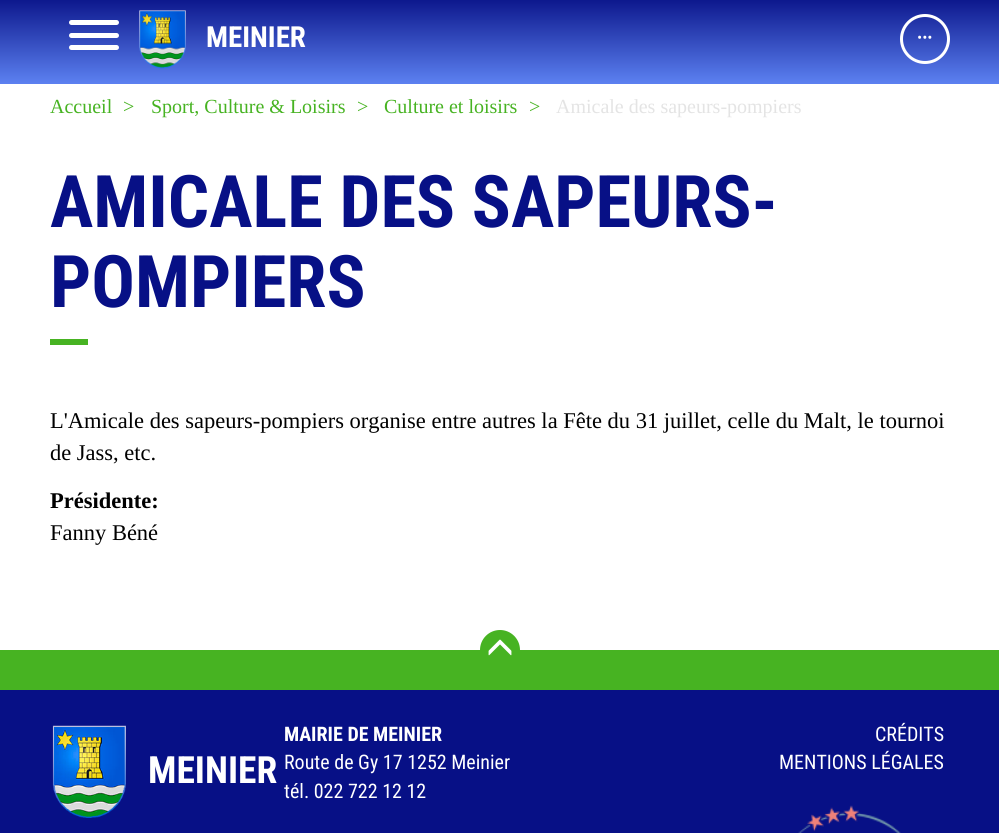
import math
import cairo

surface = cairo.ImageSurface(cairo.FORMAT_RGB24, 999, 833)
cr = cairo.Context(surface)
options = cairo.FontOptions()
options.set_hint_metrics(cairo.HINT_METRICS_OFF)
options.set_hint_style(cairo.HINT_STYLE_NONE)
cr.set_font_options(options)
cr.set_miter_limit(4)


def rgb(code):
    cr.set_source_rgb(*(v / 255 for v in bytes.fromhex(code[-6:])))


def rrect(x, y, w, h, r):
    cr.new_sub_path()
    for i, (u, v) in enumerate([(x + w - r, y + h - r), (x + r, y + h - r), (x + r, y + r), (x + w - r, y + r)]):
        cr.arc(u, v, r, i * math.pi / 2, (i + 1) * math.pi / 2)
    cr.close_path()


def image(path, x, y, w, h):
    cr.save()
    cr.set_source_surface(cairo.ImageSurface.create_from_png(path), x, y)
    cr.rectangle(x, y, w, h)
    cr.fill()
    cr.restore()


rgb("#ffffff")
cr.paint()
gradient = cairo.LinearGradient(500, -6.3, 500, 84)
gradient.add_color_stop_rgba(0, 0.027, 0.063, 0.525, 1)
gradient.add_color_stop_rgba(1, 0.361, 0.506, 0.945, 1)
cr.set_source(gradient)
cr.rectangle(0, 0, 999, 84)
cr.fill()
rgb("#ffffff")
rrect(69, 33, 50, 5, 2.5)
cr.fill()
rrect(69, 20, 50, 5, 2.5)
cr.fill()
rrect(69, 45, 50, 5, 2.5)
cr.fill()
image("img/1.png", 139, 10, 47, 59)
cr.arc(925, 39, 23.5, 0, 2 * math.pi)
cr.set_line_width(3)
cr.stroke()
rgb("#47b322")
cr.rectangle(50, 339, 38, 6)
cr.fill()
cr.rectangle(0, 650, 999, 40)
cr.fill()
cr.arc(500, 650, 20, 0, 2 * math.pi)
cr.fill()
image("img/2.png", 488, 639, 24, 17)
rgb("#071086")
cr.rectangle(0, 690, 999, 143)
cr.fill()
image("img/3.png", 52, 725, 74, 93)
image("img/4.png", 798, 805, 103, 28)
cr.select_font_face("Roboto Condensed", cairo.FONT_SLANT_NORMAL, cairo.FONT_WEIGHT_BOLD)
cr.set_font_size(29)
rgb("#ffffff")
cr.move_to(206, 47)
cr.show_text("MEINIER")
cr.select_font_face("Roboto Condensed Light")
cr.set_font_size(16)
cr.move_to(917, 43)
cr.show_text("•••")
cr.select_font_face("Liberation Serif")
cr.set_font_size(20)
rgb("#47b322")
for x, y, s in [
    (50, 113, "Accueil"),
    (123, 113, ">"),
    (151, 113, "Sport, Culture & Loisirs"),
    (357, 113, ">"),
    (384, 113, "Culture et loisirs"),
    (529, 113, ">"),
]:
    cr.move_to(x, y)
    cr.show_text(s)
rgb("#e4e4e4")
cr.move_to(556, 113)
cr.show_text("Amicale des sapeurs-pompiers")
cr.select_font_face("Roboto Condensed", cairo.FONT_SLANT_NORMAL, cairo.FONT_WEIGHT_BOLD)
cr.set_font_size(72.5)
rgb("#071086")
cr.move_to(50, 227)
cr.show_text("AMICALE DES SAPEURS-")
cr.move_to(50, 307)
cr.show_text("POMPIERS")
cr.select_font_face("Liberation Serif")
cr.set_font_size(22.5)
rgb("#000000")
cr.move_to(50, 428)
cr.show_text("L'Amicale des sapeurs-pompiers organise entre autres la Fête du 31 juillet, celle du Malt, le tournoi")
cr.move_to(50, 460)
cr.show_text("de Jass, etc.")
cr.select_font_face("Liberation Serif", cairo.FONT_SLANT_NORMAL, cairo.FONT_WEIGHT_BOLD)
cr.move_to(50, 508)
cr.show_text("Présidente:")
cr.select_font_face("Liberation Serif")
cr.move_to(50, 540)
cr.show_text("Fanny Béné")
cr.select_font_face("Roboto Condensed", cairo.FONT_SLANT_NORMAL, cairo.FONT_WEIGHT_BOLD)
cr.set_font_size(37.5)
rgb("#ffffff")
cr.move_to(148, 783)
cr.show_text("MEINIER")
cr.set_font_size(20)
cr.move_to(284, 741)
cr.show_text("MAIRIE DE MEINIER")
cr.select_font_face("Roboto Condensed")
for x, y, s in [
    (284, 769, "Route de Gy 17 1252 Meinier"),
    (284, 798, "tél. 022 722 12 12"),
    (875, 741, "CRÉDITS"),
    (779, 769, "MENTIONS LÉGALES"),
]:
    cr.move_to(x, y)
    cr.show_text(s)
surface.write_to_png("page.png")
